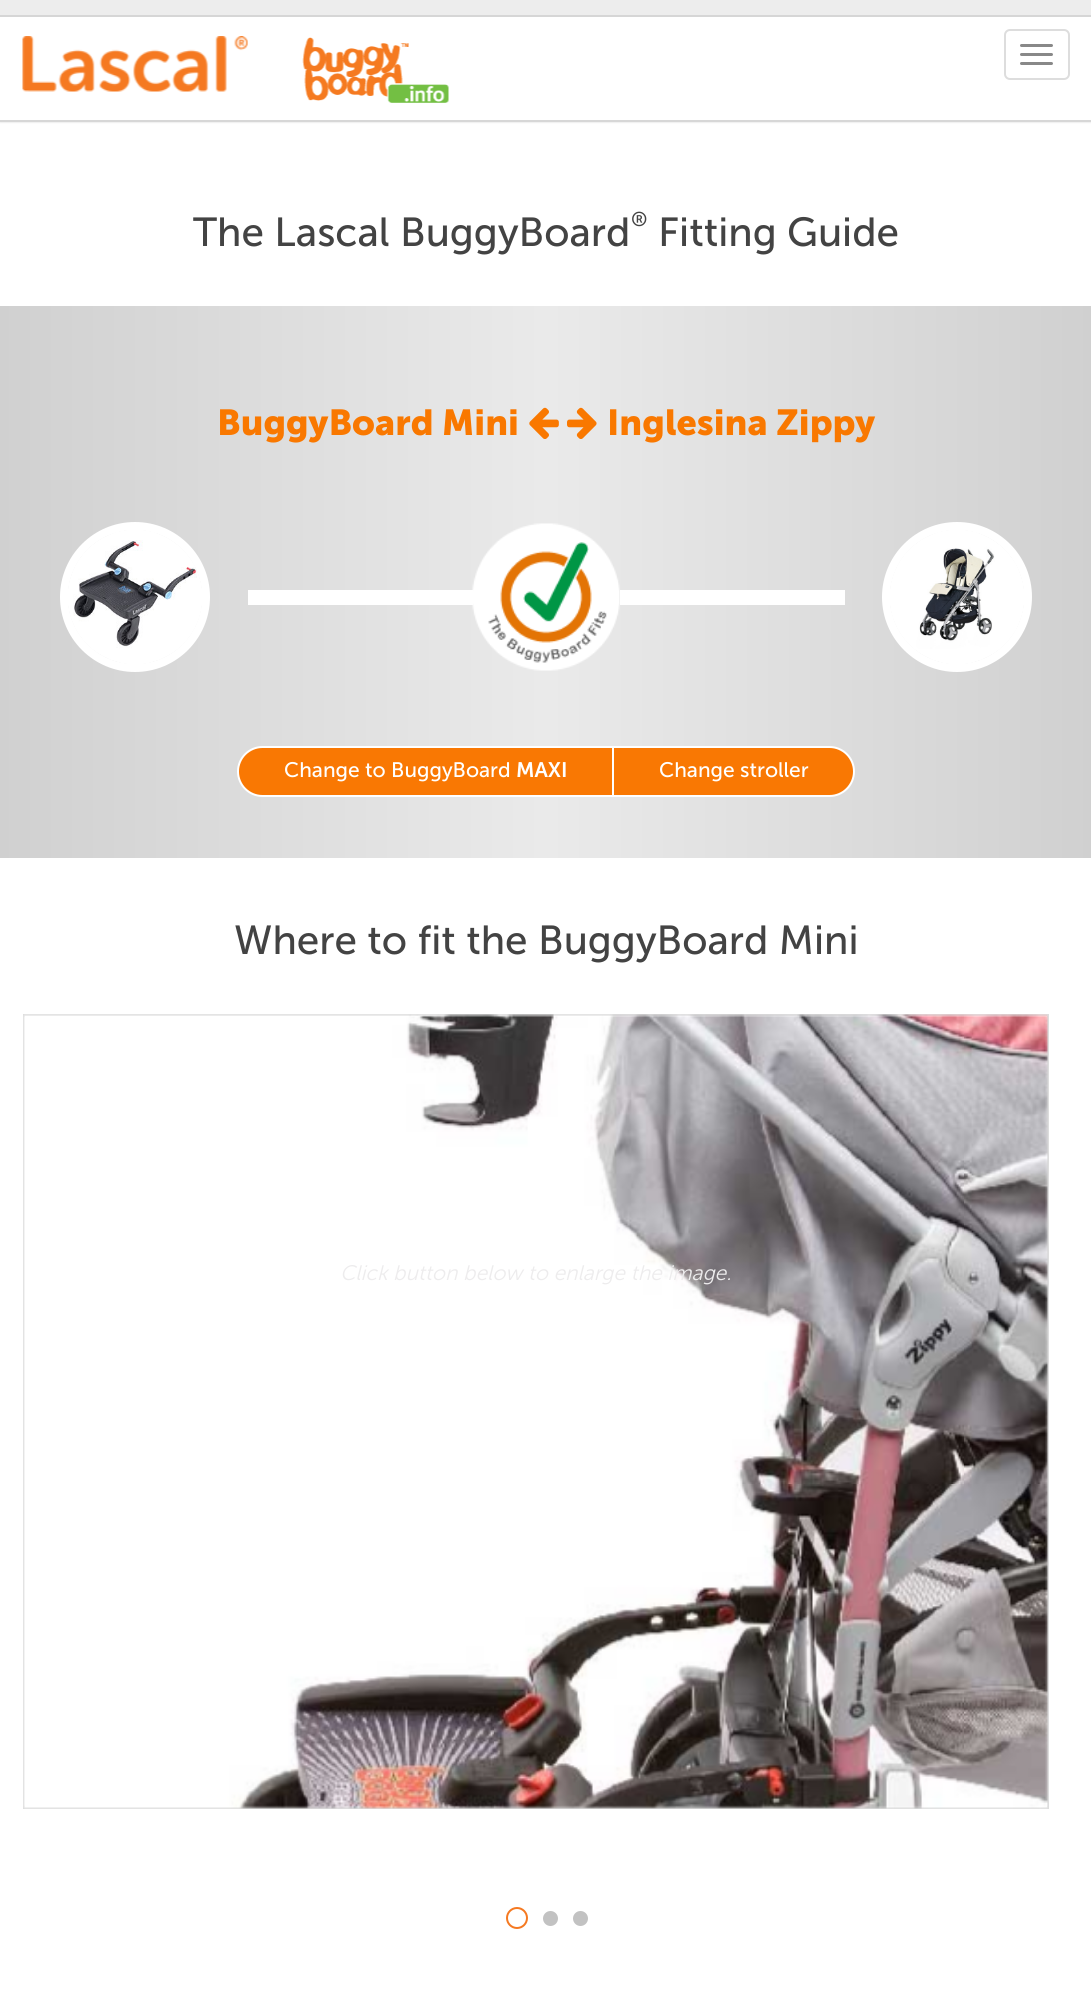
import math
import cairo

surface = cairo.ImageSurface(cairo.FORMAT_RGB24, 1091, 2011)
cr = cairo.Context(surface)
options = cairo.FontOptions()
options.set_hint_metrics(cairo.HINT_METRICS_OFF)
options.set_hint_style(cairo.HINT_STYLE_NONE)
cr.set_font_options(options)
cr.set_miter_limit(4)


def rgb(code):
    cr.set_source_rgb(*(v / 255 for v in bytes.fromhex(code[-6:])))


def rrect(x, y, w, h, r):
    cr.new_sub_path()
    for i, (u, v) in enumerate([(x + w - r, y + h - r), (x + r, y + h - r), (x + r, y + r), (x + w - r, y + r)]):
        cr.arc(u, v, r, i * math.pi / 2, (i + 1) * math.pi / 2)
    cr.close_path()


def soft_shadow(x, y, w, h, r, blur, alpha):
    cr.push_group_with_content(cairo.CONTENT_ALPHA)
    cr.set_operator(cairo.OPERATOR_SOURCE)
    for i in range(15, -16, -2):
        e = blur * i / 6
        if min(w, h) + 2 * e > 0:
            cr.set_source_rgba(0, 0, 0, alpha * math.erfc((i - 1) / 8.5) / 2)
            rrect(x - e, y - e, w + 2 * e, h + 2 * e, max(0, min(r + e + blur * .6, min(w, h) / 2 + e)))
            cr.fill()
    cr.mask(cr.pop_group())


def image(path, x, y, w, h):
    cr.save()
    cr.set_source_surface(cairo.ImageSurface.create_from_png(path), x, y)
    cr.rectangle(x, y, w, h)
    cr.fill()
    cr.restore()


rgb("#ffffff")
cr.paint()
rgb("#d7d7d7")
soft_shadow(0, 0, 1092, 122, 0, 1, 1)
for x, y, w, h, color in [
    (0, 17, 1091, 103, "#ffffff"),
    (0, 120, 1091, 2, "#d7d7d7"),
    (0, 0, 1091, 15, "#ededed"),
    (0, 15, 1091, 2, "#d6d6d6"),
]:
    rgb(color)
    cr.rectangle(x, y, w, h)
    cr.fill()
image("img/1.png", 22, 36, 226, 56)
image("img/2.png", 302, 37, 147, 66)
rrect(1005, 30, 64, 49, 5)
rgb("#dddddd")
cr.stroke()
rgb("#888888")
rrect(1020, 44, 33, 3, 1.5)
cr.fill()
rrect(1020, 53, 33, 3, 1.5)
cr.fill()
rrect(1020, 62, 33, 3, 1.5)
cr.fill()
gradient = cairo.LinearGradient(0, 582, 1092, 582)
gradient.add_color_stop_rgba(0, 0.816, 0.816, 0.816, 1)
gradient.add_color_stop_rgba(0.5, 0.918, 0.918, 0.918, 1)
gradient.add_color_stop_rgba(1, 0.816, 0.816, 0.816, 1)
cr.set_source(gradient)
cr.rectangle(0, 306, 1091, 552)
cr.fill()
image("img/3.png", 529, 407, 30, 32)
image("img/4.png", 567, 407, 30, 32)
cr.arc(135, 597, 71, 0, 2 * math.pi)
rgb("#ffffff")
cr.set_line_width(8)
cr.stroke()
image("img/5.png", 68, 530, 134, 134)
cr.rectangle(248, 590, 225, 15)
cr.fill()
image("img/6.png", 472, 523, 148, 148)
cr.arc(957, 597, 71, 0, 2 * math.pi)
cr.stroke()
image("img/7.png", 890, 530, 134, 134)
cr.rectangle(620, 590, 225, 15)
cr.fill()
rgb("#f97803")
cr.new_path()
cr.move_to(262.5, 747)
cr.line_to(613, 747)
cr.line_to(613, 796)
cr.line_to(262.5, 796)
cr.curve_to(249, 796, 238, 785, 238, 771.5)
cr.curve_to(238, 758, 249, 747, 262.5, 747)
cr.close_path()
cr.fill_preserve()
rgb("#ffffff")
cr.set_line_width(2)
cr.stroke()
rgb("#f97803")
cr.new_path()
cr.move_to(613, 747)
cr.line_to(829.5, 747)
cr.curve_to(843, 747, 854, 758, 854, 771.5)
cr.curve_to(854, 785, 843, 796, 829.5, 796)
cr.line_to(613, 796)
cr.close_path()
cr.fill_preserve()
rgb("#ffffff")
cr.stroke()
cr.rectangle(24, 1015, 1024, 793)
rgb("#dddddd")
cr.stroke()
image("img/8.png", 23, 1014, 1025, 795)
cr.arc(517, 1918, 10, 0, 2 * math.pi)
rgb("#f57921")
cr.stroke()
rgb("#c2c2c2")
cr.arc(550.5, 1918.5, 6.5, 0, 2 * math.pi)
cr.fill_preserve()
cr.stroke()
cr.arc(580.5, 1918.5, 6.5, 0, 2 * math.pi)
cr.fill_preserve()
cr.stroke()
cr.select_font_face("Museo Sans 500")
cr.set_font_size(40.5)
rgb("#434343")
cr.move_to(193, 246)
cr.show_text("The Lascal BuggyBoard")
cr.set_font_size(20)
cr.move_to(631, 226)
cr.show_text("®")
cr.set_font_size(40.5)
cr.move_to(658, 246)
cr.show_text("Fitting Guide")
cr.select_font_face("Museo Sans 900", cairo.FONT_SLANT_NORMAL, cairo.FONT_WEIGHT_BOLD)
cr.set_font_size(36)
rgb("#f97800")
cr.move_to(217, 435)
cr.show_text("BuggyBoard Mini")
cr.move_to(607, 435)
cr.show_text("Inglesina Zippy")
cr.select_font_face("Museo Sans 500")
cr.set_font_size(21)
rgb("#ffffff")
cr.move_to(284, 777)
cr.show_text("Change to BuggyBoard")
cr.select_font_face("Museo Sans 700 SemiBold")
cr.move_to(516, 777)
cr.show_text("MAXI")
cr.select_font_face("Museo Sans 500")
cr.move_to(659, 777)
cr.show_text("Change stroller")
cr.set_font_size(40.5)
rgb("#434343")
cr.move_to(234, 954)
cr.show_text("Where to fit the BuggyBoard Mini")
cr.select_font_face("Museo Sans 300 Light", cairo.FONT_SLANT_ITALIC)
cr.set_font_size(21)
rgb("#edeced")
cr.move_to(340, 1280)
cr.show_text("Click button below to enlarge the image.")
surface.write_to_png("page.png")
